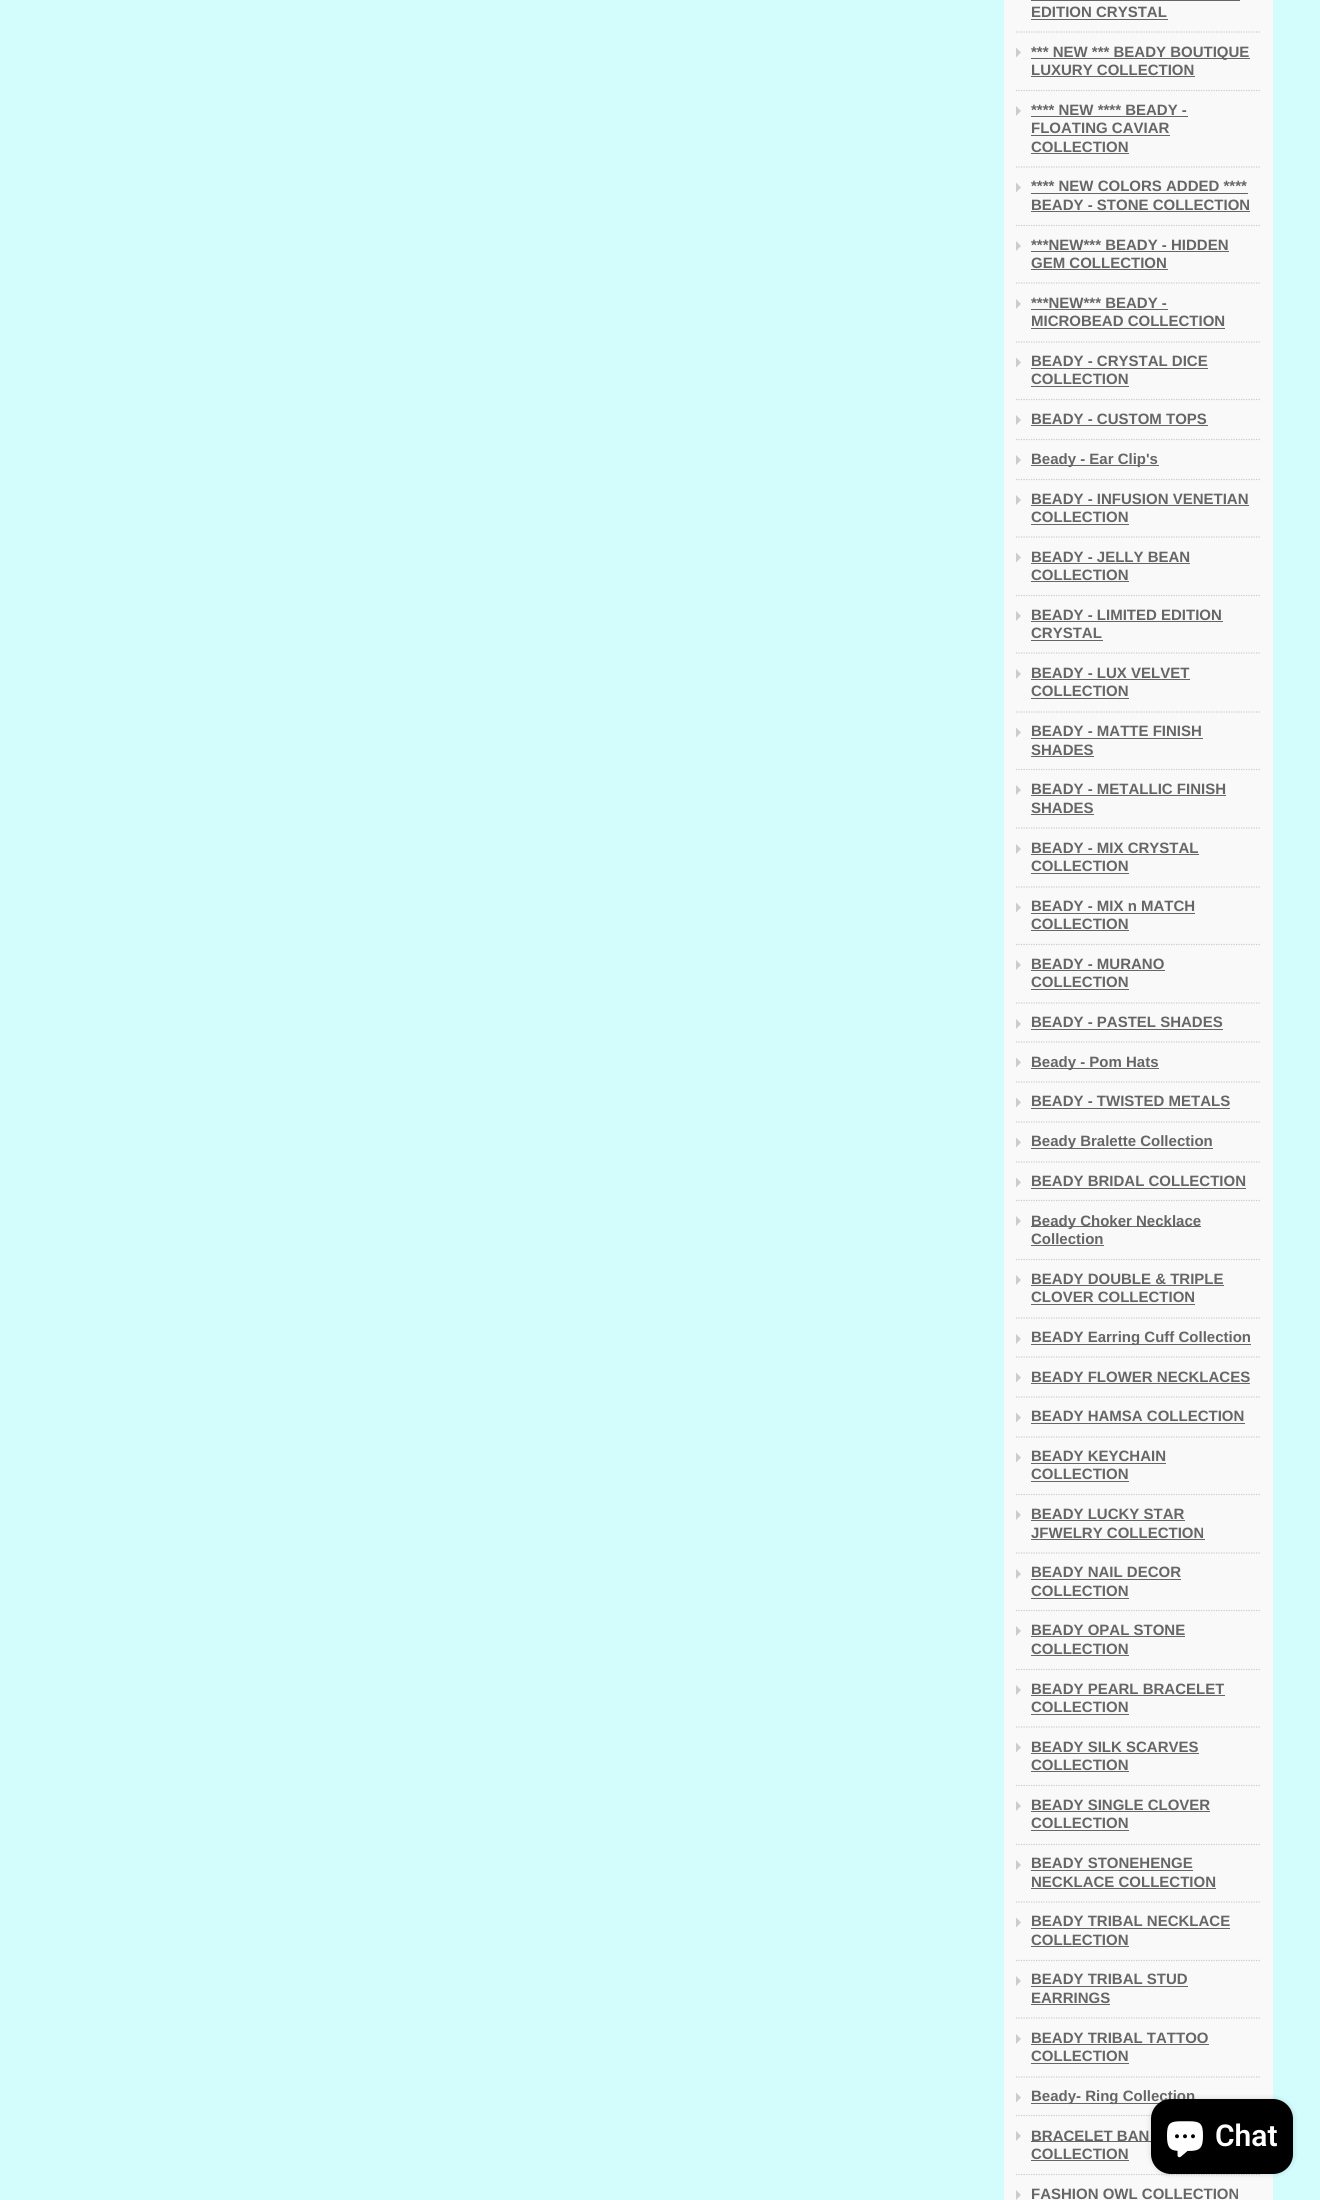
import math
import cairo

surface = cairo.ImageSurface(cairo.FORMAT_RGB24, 1320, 2200)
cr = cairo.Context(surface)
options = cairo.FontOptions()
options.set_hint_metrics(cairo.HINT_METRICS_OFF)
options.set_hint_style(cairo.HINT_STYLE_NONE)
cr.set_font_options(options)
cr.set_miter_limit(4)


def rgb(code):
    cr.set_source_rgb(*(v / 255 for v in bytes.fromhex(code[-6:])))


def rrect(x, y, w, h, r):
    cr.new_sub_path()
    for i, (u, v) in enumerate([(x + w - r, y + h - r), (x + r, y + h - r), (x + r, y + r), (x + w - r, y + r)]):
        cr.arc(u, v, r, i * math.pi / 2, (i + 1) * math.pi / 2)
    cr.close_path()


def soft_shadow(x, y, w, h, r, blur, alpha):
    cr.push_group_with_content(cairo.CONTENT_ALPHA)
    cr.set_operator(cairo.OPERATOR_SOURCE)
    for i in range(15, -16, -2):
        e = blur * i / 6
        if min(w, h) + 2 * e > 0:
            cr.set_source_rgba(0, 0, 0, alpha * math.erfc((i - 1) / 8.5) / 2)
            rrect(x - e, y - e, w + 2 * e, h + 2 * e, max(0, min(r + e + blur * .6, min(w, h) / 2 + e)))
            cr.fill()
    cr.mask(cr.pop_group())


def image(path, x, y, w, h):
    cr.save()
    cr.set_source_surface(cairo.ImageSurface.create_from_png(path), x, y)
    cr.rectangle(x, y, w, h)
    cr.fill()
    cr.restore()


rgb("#d3fcfc")
cr.paint()
for x, y, w, h, color in [
    (1004, 0, 269, 2200, "#f9f9f9"),
    (1031, 0, 209, 1, "#666666"),
    (1031, 19, 137, 1, "#666666"),
]:
    rgb(color)
    cr.rectangle(x, y, w, h)
    cr.fill()
cr.new_path()
cr.move_to(1016, 32)
cr.line_to(1260, 32)
rgb("#cccccc")
cr.set_line_width(1.2)
cr.set_dash([1.25, 1.25])
cr.stroke()
cr.new_path()
cr.move_to(1016, 57.5)
cr.line_to(1016, 47.5)
cr.line_to(1021, 52.5)
cr.close_path()
cr.fill()
rgb("#666666")
cr.rectangle(1031, 58, 219, 1)
cr.fill()
cr.rectangle(1031, 76, 164, 1)
cr.fill()
cr.new_path()
cr.move_to(1016, 90.5)
cr.line_to(1260, 90.5)
rgb("#cccccc")
cr.stroke()
cr.new_path()
cr.move_to(1016, 116)
cr.line_to(1016, 106)
cr.line_to(1021, 111)
cr.close_path()
cr.fill()
for x, y, w, h, color in [
    (1031, 116, 157, 1, "#666666"),
    (1031, 135, 139, 1, "#666666"),
    (1031, 153, 98, 1, "#666666"),
]:
    rgb(color)
    cr.rectangle(x, y, w, h)
    cr.fill()
cr.new_path()
cr.move_to(1016, 167)
cr.line_to(1260, 167)
rgb("#cccccc")
cr.stroke()
cr.new_path()
cr.move_to(1016, 192.5)
cr.line_to(1016, 182.5)
cr.line_to(1021, 187.5)
cr.close_path()
cr.fill()
rgb("#666666")
cr.rectangle(1031, 193, 217, 1)
cr.fill()
cr.rectangle(1031, 211, 219, 1)
cr.fill()
cr.new_path()
cr.move_to(1016, 225.5)
cr.line_to(1260, 225.5)
rgb("#cccccc")
cr.stroke()
cr.new_path()
cr.move_to(1016, 251)
cr.line_to(1016, 241)
cr.line_to(1021, 246)
cr.close_path()
cr.fill()
rgb("#666666")
cr.rectangle(1031, 251, 198, 1)
cr.fill()
cr.rectangle(1031, 269, 137, 1)
cr.fill()
cr.new_path()
cr.move_to(1016, 283)
cr.line_to(1260, 283)
rgb("#cccccc")
cr.stroke()
cr.new_path()
cr.move_to(1016, 309)
cr.line_to(1016, 299)
cr.line_to(1021, 304)
cr.close_path()
cr.fill()
rgb("#666666")
cr.rectangle(1031, 309, 137, 1)
cr.fill()
cr.rectangle(1031, 328, 194, 1)
cr.fill()
cr.new_path()
cr.move_to(1016, 342)
cr.line_to(1260, 342)
rgb("#cccccc")
cr.stroke()
cr.new_path()
cr.move_to(1016, 367.5)
cr.line_to(1016, 357.5)
cr.line_to(1021, 362.5)
cr.close_path()
cr.fill()
rgb("#666666")
cr.rectangle(1031, 368, 177, 1)
cr.fill()
cr.rectangle(1031, 386, 98, 1)
cr.fill()
cr.new_path()
cr.move_to(1016, 399.5)
cr.line_to(1260, 399.5)
rgb("#cccccc")
cr.stroke()
cr.new_path()
cr.move_to(1016, 439.5)
cr.line_to(1260, 439.5)
cr.stroke()
cr.new_path()
cr.move_to(1016, 425)
cr.line_to(1016, 415)
cr.line_to(1021, 420)
cr.close_path()
cr.move_to(1016, 465)
cr.line_to(1016, 455)
cr.line_to(1021, 460)
cr.close_path()
cr.fill()
rgb("#666666")
cr.rectangle(1031, 425, 177, 1)
cr.fill()
cr.rectangle(1031, 465, 128, 1)
cr.fill()
cr.new_path()
cr.move_to(1016, 479.5)
cr.line_to(1260, 479.5)
rgb("#cccccc")
cr.stroke()
cr.new_path()
cr.move_to(1016, 505)
cr.line_to(1016, 495)
cr.line_to(1021, 500)
cr.close_path()
cr.fill()
rgb("#666666")
cr.rectangle(1031, 505, 218, 1)
cr.fill()
cr.rectangle(1031, 524, 98, 1)
cr.fill()
cr.new_path()
cr.move_to(1016, 537)
cr.line_to(1260, 537)
rgb("#cccccc")
cr.stroke()
cr.new_path()
cr.move_to(1016, 562.5)
cr.line_to(1016, 552.5)
cr.line_to(1021, 557.5)
cr.close_path()
cr.fill()
rgb("#666666")
cr.rectangle(1031, 563, 159, 1)
cr.fill()
cr.rectangle(1031, 581, 98, 1)
cr.fill()
cr.new_path()
cr.move_to(1016, 595.5)
cr.line_to(1260, 595.5)
rgb("#cccccc")
cr.stroke()
cr.new_path()
cr.move_to(1016, 621)
cr.line_to(1016, 611)
cr.line_to(1021, 616)
cr.close_path()
cr.fill()
rgb("#666666")
cr.rectangle(1031, 621, 192, 1)
cr.fill()
cr.rectangle(1031, 640, 72, 1)
cr.fill()
cr.new_path()
cr.move_to(1016, 653)
cr.line_to(1260, 653)
rgb("#cccccc")
cr.stroke()
cr.new_path()
cr.move_to(1016, 679)
cr.line_to(1016, 669)
cr.line_to(1021, 674)
cr.close_path()
cr.fill()
rgb("#666666")
cr.rectangle(1031, 679, 159, 1)
cr.fill()
cr.rectangle(1031, 698, 98, 1)
cr.fill()
cr.new_path()
cr.move_to(1016, 712)
cr.line_to(1260, 712)
rgb("#cccccc")
cr.stroke()
cr.new_path()
cr.move_to(1016, 737.5)
cr.line_to(1016, 727.5)
cr.line_to(1021, 732.5)
cr.close_path()
cr.fill()
rgb("#666666")
cr.rectangle(1031, 738, 172, 1)
cr.fill()
cr.rectangle(1031, 756, 63, 1)
cr.fill()
cr.new_path()
cr.move_to(1016, 769.5)
cr.line_to(1260, 769.5)
rgb("#cccccc")
cr.stroke()
cr.new_path()
cr.move_to(1016, 795)
cr.line_to(1016, 785)
cr.line_to(1021, 790)
cr.close_path()
cr.fill()
rgb("#666666")
cr.rectangle(1031, 795, 195, 1)
cr.fill()
cr.rectangle(1031, 814, 63, 1)
cr.fill()
cr.new_path()
cr.move_to(1016, 828)
cr.line_to(1260, 828)
rgb("#cccccc")
cr.stroke()
cr.new_path()
cr.move_to(1016, 854)
cr.line_to(1016, 844)
cr.line_to(1021, 849)
cr.close_path()
cr.fill()
rgb("#666666")
cr.rectangle(1031, 854, 168, 1)
cr.fill()
cr.rectangle(1031, 873, 98, 1)
cr.fill()
cr.new_path()
cr.move_to(1016, 887)
cr.line_to(1260, 887)
rgb("#cccccc")
cr.stroke()
cr.new_path()
cr.move_to(1016, 912.5)
cr.line_to(1016, 902.5)
cr.line_to(1021, 907.5)
cr.close_path()
cr.fill()
rgb("#666666")
cr.rectangle(1031, 913, 164, 1)
cr.fill()
cr.rectangle(1031, 930, 98, 1)
cr.fill()
cr.new_path()
cr.move_to(1016, 944.5)
cr.line_to(1260, 944.5)
rgb("#cccccc")
cr.stroke()
cr.new_path()
cr.move_to(1016, 970)
cr.line_to(1016, 960)
cr.line_to(1021, 965)
cr.close_path()
cr.fill()
rgb("#666666")
cr.rectangle(1031, 970, 134, 1)
cr.fill()
cr.rectangle(1031, 989, 98, 1)
cr.fill()
cr.new_path()
cr.move_to(1016, 1003)
cr.line_to(1260, 1003)
rgb("#cccccc")
cr.stroke()
cr.new_path()
cr.move_to(1016, 1042)
cr.line_to(1260, 1042)
cr.stroke()
cr.new_path()
cr.move_to(1016, 1029)
cr.line_to(1016, 1019)
cr.line_to(1021, 1024)
cr.close_path()
cr.move_to(1016, 1067.5)
cr.line_to(1016, 1057.5)
cr.line_to(1021, 1062.5)
cr.close_path()
cr.fill()
rgb("#666666")
cr.rectangle(1031, 1029, 192, 1)
cr.fill()
cr.rectangle(1031, 1068, 128, 1)
cr.fill()
cr.new_path()
cr.move_to(1016, 1082)
cr.line_to(1260, 1082)
rgb("#cccccc")
cr.stroke()
cr.new_path()
cr.move_to(1016, 1122)
cr.line_to(1260, 1122)
cr.stroke()
cr.new_path()
cr.move_to(1016, 1107.5)
cr.line_to(1016, 1097.5)
cr.line_to(1021, 1102.5)
cr.close_path()
cr.move_to(1016, 1147.5)
cr.line_to(1016, 1137.5)
cr.line_to(1021, 1142.5)
cr.close_path()
cr.fill()
rgb("#666666")
cr.rectangle(1031, 1108, 199, 1)
cr.fill()
cr.rectangle(1031, 1148, 182, 1)
cr.fill()
cr.new_path()
cr.move_to(1016, 1162)
cr.line_to(1260, 1162)
rgb("#cccccc")
cr.stroke()
cr.new_path()
cr.move_to(1016, 1200.5)
cr.line_to(1260, 1200.5)
cr.stroke()
cr.new_path()
cr.move_to(1016, 1187.5)
cr.line_to(1016, 1177.5)
cr.line_to(1021, 1182.5)
cr.close_path()
cr.move_to(1016, 1226)
cr.line_to(1016, 1216)
cr.line_to(1021, 1221)
cr.close_path()
cr.fill()
for x, y, w, h, color in [
    (1031, 1188, 215, 1, "#666666"),
    (1031, 1226, 170, 1, "#666666"),
    (1031, 1245, 73, 1, "#666666"),
]:
    rgb(color)
    cr.rectangle(x, y, w, h)
    cr.fill()
cr.new_path()
cr.move_to(1016, 1259.5)
cr.line_to(1260, 1259.5)
rgb("#cccccc")
cr.stroke()
cr.new_path()
cr.move_to(1016, 1285)
cr.line_to(1016, 1275)
cr.line_to(1021, 1280)
cr.close_path()
cr.fill()
rgb("#666666")
cr.rectangle(1031, 1285, 193, 1)
cr.fill()
cr.rectangle(1031, 1304, 164, 1)
cr.fill()
cr.new_path()
cr.move_to(1016, 1318)
cr.line_to(1260, 1318)
rgb("#cccccc")
cr.stroke()
cr.new_path()
cr.move_to(1016, 1357)
cr.line_to(1260, 1357)
cr.stroke()
cr.new_path()
cr.move_to(1016, 1344)
cr.line_to(1016, 1334)
cr.line_to(1021, 1339)
cr.close_path()
cr.move_to(1016, 1382.5)
cr.line_to(1016, 1372.5)
cr.line_to(1021, 1377.5)
cr.close_path()
cr.fill()
rgb("#666666")
cr.rectangle(1031, 1344, 220, 1)
cr.fill()
cr.rectangle(1031, 1383, 219, 1)
cr.fill()
cr.new_path()
cr.move_to(1016, 1397)
cr.line_to(1260, 1397)
rgb("#cccccc")
cr.stroke()
cr.new_path()
cr.move_to(1016, 1437)
cr.line_to(1260, 1437)
cr.stroke()
cr.new_path()
cr.move_to(1016, 1422.5)
cr.line_to(1016, 1412.5)
cr.line_to(1021, 1417.5)
cr.close_path()
cr.move_to(1016, 1462.5)
cr.line_to(1016, 1452.5)
cr.line_to(1021, 1457.5)
cr.close_path()
cr.fill()
for x, y, w, h, color in [
    (1031, 1423, 214, 1, "#666666"),
    (1031, 1463, 135, 1, "#666666"),
    (1031, 1481, 98, 1, "#666666"),
]:
    rgb(color)
    cr.rectangle(x, y, w, h)
    cr.fill()
cr.new_path()
cr.move_to(1016, 1494.5)
cr.line_to(1260, 1494.5)
rgb("#cccccc")
cr.stroke()
cr.new_path()
cr.move_to(1016, 1520)
cr.line_to(1016, 1510)
cr.line_to(1021, 1515)
cr.close_path()
cr.fill()
rgb("#666666")
cr.rectangle(1031, 1520, 154, 1)
cr.fill()
cr.rectangle(1031, 1539, 174, 1)
cr.fill()
cr.new_path()
cr.move_to(1016, 1553)
cr.line_to(1260, 1553)
rgb("#cccccc")
cr.stroke()
cr.new_path()
cr.move_to(1016, 1579)
cr.line_to(1016, 1569)
cr.line_to(1021, 1574)
cr.close_path()
cr.fill()
rgb("#666666")
cr.rectangle(1031, 1579, 150, 1)
cr.fill()
cr.rectangle(1031, 1598, 98, 1)
cr.fill()
cr.new_path()
cr.move_to(1016, 1610.5)
cr.line_to(1260, 1610.5)
rgb("#cccccc")
cr.stroke()
cr.new_path()
cr.move_to(1016, 1636)
cr.line_to(1016, 1626)
cr.line_to(1021, 1631)
cr.close_path()
cr.fill()
rgb("#666666")
cr.rectangle(1031, 1636, 154, 1)
cr.fill()
cr.rectangle(1031, 1655, 98, 1)
cr.fill()
cr.new_path()
cr.move_to(1016, 1669.5)
cr.line_to(1260, 1669.5)
rgb("#cccccc")
cr.stroke()
cr.new_path()
cr.move_to(1016, 1695)
cr.line_to(1016, 1685)
cr.line_to(1021, 1690)
cr.close_path()
cr.fill()
rgb("#666666")
cr.rectangle(1031, 1695, 194, 1)
cr.fill()
cr.rectangle(1031, 1714, 98, 1)
cr.fill()
cr.new_path()
cr.move_to(1016, 1727)
cr.line_to(1260, 1727)
rgb("#cccccc")
cr.stroke()
cr.new_path()
cr.move_to(1016, 1752.5)
cr.line_to(1016, 1742.5)
cr.line_to(1021, 1747.5)
cr.close_path()
cr.fill()
rgb("#666666")
cr.rectangle(1031, 1753, 168, 1)
cr.fill()
cr.rectangle(1031, 1771, 98, 1)
cr.fill()
cr.new_path()
cr.move_to(1016, 1785.5)
cr.line_to(1260, 1785.5)
rgb("#cccccc")
cr.stroke()
cr.new_path()
cr.move_to(1016, 1811)
cr.line_to(1016, 1801)
cr.line_to(1021, 1806)
cr.close_path()
cr.fill()
rgb("#666666")
cr.rectangle(1031, 1811, 179, 1)
cr.fill()
cr.rectangle(1031, 1830, 98, 1)
cr.fill()
cr.new_path()
cr.move_to(1016, 1844.5)
cr.line_to(1260, 1844.5)
rgb("#cccccc")
cr.stroke()
cr.new_path()
cr.move_to(1016, 1870)
cr.line_to(1016, 1860)
cr.line_to(1021, 1865)
cr.close_path()
cr.fill()
rgb("#666666")
cr.rectangle(1031, 1870, 162, 1)
cr.fill()
cr.rectangle(1031, 1888, 185, 1)
cr.fill()
cr.new_path()
cr.move_to(1016, 1902)
cr.line_to(1260, 1902)
rgb("#cccccc")
cr.stroke()
cr.new_path()
cr.move_to(1016, 1927.5)
cr.line_to(1016, 1917.5)
cr.line_to(1021, 1922.5)
cr.close_path()
cr.fill()
rgb("#666666")
cr.rectangle(1031, 1928, 199, 1)
cr.fill()
cr.rectangle(1031, 1946, 98, 1)
cr.fill()
cr.new_path()
cr.move_to(1016, 1960.5)
cr.line_to(1260, 1960.5)
rgb("#cccccc")
cr.stroke()
cr.new_path()
cr.move_to(1016, 1986)
cr.line_to(1016, 1976)
cr.line_to(1021, 1981)
cr.close_path()
cr.fill()
rgb("#666666")
cr.rectangle(1031, 1986, 157, 1)
cr.fill()
cr.rectangle(1031, 2004, 79, 1)
cr.fill()
cr.new_path()
cr.move_to(1016, 2018)
cr.line_to(1260, 2018)
rgb("#cccccc")
cr.stroke()
cr.new_path()
cr.move_to(1016, 2044)
cr.line_to(1016, 2034)
cr.line_to(1021, 2039)
cr.close_path()
cr.fill()
rgb("#666666")
cr.rectangle(1031, 2044, 178, 1)
cr.fill()
cr.rectangle(1031, 2063, 98, 1)
cr.fill()
cr.new_path()
cr.move_to(1016, 2077)
cr.line_to(1260, 2077)
rgb("#cccccc")
cr.stroke()
cr.new_path()
cr.move_to(1016, 2115.5)
cr.line_to(1260, 2115.5)
cr.stroke()
cr.new_path()
cr.move_to(1016, 2102.5)
cr.line_to(1016, 2092.5)
cr.line_to(1021, 2097.5)
cr.close_path()
cr.move_to(1016, 2141)
cr.line_to(1016, 2131)
cr.line_to(1021, 2136)
cr.close_path()
cr.fill()
for x, y, w, h, color in [
    (1031, 2103, 128, 1, "#666666"),
    (1031, 2141, 120, 1, "#666666"),
    (1031, 2160, 98, 1, "#666666"),
]:
    rgb(color)
    cr.rectangle(x, y, w, h)
    cr.fill()
cr.new_path()
cr.move_to(1016, 2174.5)
cr.line_to(1260, 2174.5)
rgb("#cccccc")
cr.stroke()
cr.new_path()
cr.move_to(1016, 2200)
cr.line_to(1016, 2190)
cr.line_to(1021, 2195)
cr.close_path()
cr.fill()
rgb("#000000")
soft_shadow(1151, 2099, 142, 75, 20, 3, 0.15)
cr.select_font_face("Liberation Sans", cairo.FONT_SLANT_NORMAL, cairo.FONT_WEIGHT_BOLD)
cr.set_font_size(15)
rgb("#666666")
for x, y, s in [
    (1031, 17, "EDITION CRYSTAL"),
    (1031, 57, "*** NEW *** BEADY BOUTIQUE"),
    (1031, 75, "LUXURY COLLECTION"),
    (1031, 115, "**** NEW **** BEADY -"),
    (1031, 133, "FLOATING CAVIAR"),
    (1031, 152, "COLLECTION"),
    (1031, 191, "**** NEW COLORS ADDED ****"),
    (1031, 210, "BEADY - STONE COLLECTION"),
    (1031, 250, "***NEW*** BEADY - HIDDEN"),
    (1031, 268, "GEM COLLECTION"),
    (1031, 308, "***NEW*** BEADY -"),
    (1031, 326, "MICROBEAD COLLECTION"),
    (1031, 366, "BEADY - CRYSTAL DICE"),
    (1031, 384, "COLLECTION"),
    (1031, 424, "BEADY - CUSTOM TOPS"),
    (1031, 464, "Beady - Ear Clip's"),
    (1031, 504, "BEADY - INFUSION VENETIAN"),
    (1031, 522, "COLLECTION"),
    (1031, 562, "BEADY - JELLY BEAN"),
    (1031, 580, "COLLECTION"),
    (1031, 620, "BEADY - LIMITED EDITION"),
    (1031, 638, "CRYSTAL"),
    (1031, 678, "BEADY - LUX VELVET"),
    (1031, 696, "COLLECTION"),
    (1031, 736, "BEADY - MATTE FINISH"),
    (1031, 755, "SHADES"),
    (1031, 794, "BEADY - METALLIC FINISH"),
    (1031, 813, "SHADES"),
    (1031, 853, "BEADY - MIX CRYSTAL"),
    (1031, 871, "COLLECTION"),
    (1031, 911, "BEADY - MIX n MATCH"),
    (1031, 929, "COLLECTION"),
    (1031, 969, "BEADY - MURANO"),
    (1031, 987, "COLLECTION"),
    (1031, 1027, "BEADY - PASTEL SHADES"),
    (1031, 1067, "Beady - Pom Hats"),
    (1031, 1106, "BEADY - TWISTED METALS"),
    (1031, 1146, "Beady Bralette Collection"),
    (1031, 1186, "BEADY BRIDAL COLLECTION"),
    (1031, 1226, "Beady Choker Necklace"),
    (1031, 1244, "Collection"),
    (1031, 1284, "BEADY DOUBLE & TRIPLE"),
    (1031, 1302, "CLOVER COLLECTION"),
    (1031, 1342, "BEADY Earring Cuff Collection"),
    (1031, 1382, "BEADY FLOWER NECKLACES"),
    (1031, 1421, "BEADY HAMSA COLLECTION"),
    (1031, 1461, "BEADY KEYCHAIN"),
    (1031, 1479, "COLLECTION"),
    (1031, 1519, "BEADY LUCKY STAR"),
    (1031, 1538, "JFWELRY COLLECTION"),
    (1031, 1577, "BEADY NAIL DECOR"),
    (1031, 1596, "COLLECTION"),
    (1031, 1635, "BEADY OPAL STONE"),
    (1031, 1654, "COLLECTION"),
    (1031, 1694, "BEADY PEARL BRACELET"),
    (1031, 1712, "COLLECTION"),
    (1031, 1752, "BEADY SILK SCARVES"),
    (1031, 1770, "COLLECTION"),
    (1031, 1810, "BEADY SINGLE CLOVER"),
    (1031, 1828, "COLLECTION"),
    (1031, 1868, "BEADY STONEHENGE"),
    (1031, 1887, "NECKLACE COLLECTION"),
    (1031, 1926, "BEADY TRIBAL NECKLACE"),
    (1031, 1945, "COLLECTION"),
    (1031, 1984, "BEADY TRIBAL STUD"),
    (1031, 2003, "EARRINGS"),
    (1031, 2043, "BEADY TRIBAL TATTOO"),
    (1031, 2061, "COLLECTION"),
    (1031, 2101, "Beady- Ring Collection"),
    (1031, 2141, "BRACELET BAN"),
    (1031, 2159, "COLLECTION"),
    (1031, 2199, "FASHION OWL COLLECTION"),
]:
    cr.move_to(x, y)
    cr.show_text(s)
rgb("#000000")
rrect(1151, 2099, 142, 75, 20)
cr.fill()
image("img/1.png", 1167, 2121, 36, 37)
cr.select_font_face("Roboto SemiBold")
cr.set_font_size(30)
rgb("#ffffff")
cr.move_to(1215, 2146)
cr.show_text("Chat")
surface.write_to_png("page.png")
